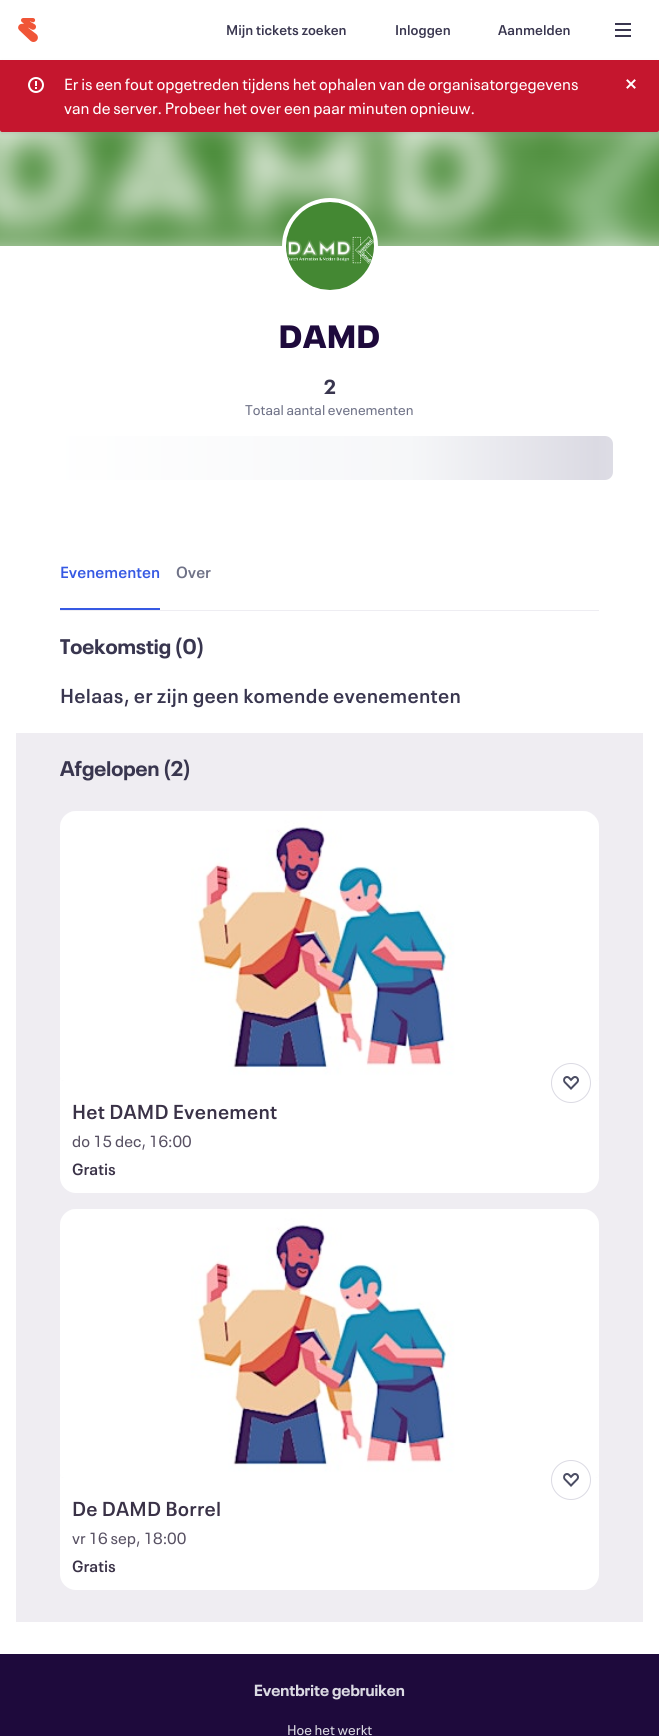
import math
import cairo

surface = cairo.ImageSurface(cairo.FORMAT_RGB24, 659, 1736)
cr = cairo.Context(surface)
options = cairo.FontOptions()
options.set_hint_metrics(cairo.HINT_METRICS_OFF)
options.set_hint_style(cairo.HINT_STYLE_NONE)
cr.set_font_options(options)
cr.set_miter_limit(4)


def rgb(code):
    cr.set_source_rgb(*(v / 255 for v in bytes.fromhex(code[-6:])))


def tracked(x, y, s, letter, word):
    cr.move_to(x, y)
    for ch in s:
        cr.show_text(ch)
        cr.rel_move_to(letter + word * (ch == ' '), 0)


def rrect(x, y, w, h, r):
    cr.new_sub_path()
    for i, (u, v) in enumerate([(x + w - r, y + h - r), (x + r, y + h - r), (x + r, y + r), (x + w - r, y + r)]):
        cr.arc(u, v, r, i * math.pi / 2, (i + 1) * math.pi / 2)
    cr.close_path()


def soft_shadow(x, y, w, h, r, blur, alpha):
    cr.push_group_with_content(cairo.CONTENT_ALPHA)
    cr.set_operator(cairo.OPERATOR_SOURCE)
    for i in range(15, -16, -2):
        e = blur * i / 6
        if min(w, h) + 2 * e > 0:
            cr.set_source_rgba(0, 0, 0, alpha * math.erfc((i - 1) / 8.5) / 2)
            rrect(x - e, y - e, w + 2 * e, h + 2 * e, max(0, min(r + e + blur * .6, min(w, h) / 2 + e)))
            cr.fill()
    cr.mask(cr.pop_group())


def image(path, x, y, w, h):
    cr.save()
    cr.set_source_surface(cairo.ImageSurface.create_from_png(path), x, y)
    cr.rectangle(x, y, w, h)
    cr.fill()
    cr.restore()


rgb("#ffffff")
cr.paint()
image("img/1.png", 18, 18, 20, 24)
image("img/2.png", 615, 23, 16, 14)
image("img/3.png", 0, 130, 659, 116)
rgb("#ffffff")
cr.arc(330, 246, 46, 0, 2 * math.pi)
cr.fill_preserve()
cr.set_line_width(4)
cr.stroke()
image("img/4.png", 286, 202, 88, 88)
gradient = cairo.LinearGradient(46, 458, 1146, 458)
gradient.add_color_stop_rgba(0, 1, 1, 1, 1)
gradient.add_color_stop_rgba(0.33, 0.965, 0.969, 0.976, 1)
gradient.add_color_stop_rgba(0.5, 0.859, 0.855, 0.89, 1)
gradient.add_color_stop_rgba(0.67, 0.965, 0.969, 0.976, 1)
gradient.add_color_stop_rgba(1, 1, 1, 1, 1)
cr.set_source(gradient)
rrect(46, 436, 567, 44, 8)
cr.fill()
for x, y, w, h, color in [
    (60, 608, 100, 2, "#3659e3"),
    (60, 610, 539, 1, "#eeedf2"),
    (16, 733, 627, 889, "#efedf2"),
]:
    rgb(color)
    cr.rectangle(x, y, w, h)
    cr.fill()
rgb("#ffffff")
rrect(60, 811, 539, 382, 16)
cr.fill()
cr.save()
rrect(60, 811, 539, 270, 4)
cr.clip()
rgb("#eeedf2")
cr.new_path()
cr.move_to(76, 811)
cr.line_to(583, 811)
cr.curve_to(592, 811, 599, 818, 599, 827)
cr.line_to(599, 1077)
cr.curve_to(599, 1079, 597, 1081, 595, 1081)
cr.line_to(64, 1081)
cr.curve_to(62, 1081, 60, 1079, 60, 1077)
cr.line_to(60, 827)
cr.curve_to(60, 818, 67, 811, 76, 811)
cr.close_path()
cr.fill()
cr.restore()
image("img/5.png", 60, 811, 539, 270)
cr.arc(571, 1083, 19.5, 0, 2 * math.pi)
rgb("#dbdae3")
cr.set_line_width(1)
cr.stroke()
image("img/6.png", 563, 1076, 16, 14)
rgb("#ffffff")
rrect(60, 1209, 539, 381, 16)
cr.fill()
cr.save()
rrect(60, 1209, 539, 269, 4)
cr.clip()
rgb("#eeedf2")
cr.new_path()
cr.move_to(76, 1209)
cr.line_to(583, 1209)
cr.curve_to(592, 1209, 599, 1216, 599, 1225)
cr.line_to(599, 1474)
cr.curve_to(599, 1476, 597, 1478, 595, 1478)
cr.line_to(64, 1478)
cr.curve_to(62, 1478, 60, 1476, 60, 1474)
cr.line_to(60, 1225)
cr.curve_to(60, 1216, 67, 1209, 76, 1209)
cr.close_path()
cr.fill()
cr.restore()
image("img/7.png", 60, 1209, 539, 269)
cr.arc(571, 1480, 19.5, 0, 2 * math.pi)
rgb("#dbdae3")
cr.stroke()
image("img/6.png", 563, 1473, 16, 14)
rgb("#1e0a3c")
cr.rectangle(0, 1654, 659, 82)
cr.fill()
rgb("#282c35")
soft_shadow(0, 62, 659, 72, 2, 1, 0.06)
soft_shadow(0, 64, 659, 72, 2, 4, 0.06)
rgb("#c5162e")
cr.new_path()
cr.move_to(0, 60)
cr.line_to(659, 60)
cr.line_to(659, 130)
cr.curve_to(659, 131, 658, 132, 657, 132)
cr.line_to(2, 132)
cr.curve_to(1, 132, 0, 131, 0, 130)
cr.close_path()
cr.fill()
image("img/8.png", 28, 77, 16, 16)
image("img/9.png", 626, 79, 10, 10)
cr.select_font_face("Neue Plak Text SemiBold")
cr.set_font_size(14)
rgb("#39364f")
for x, y, s in [
    (226, 35, "Mijn tickets zoeken"),
    (395, 35, "Inloggen"),
    (498, 35, "Aanmelden"),
]:
    cr.move_to(x, y)
    cr.show_text(s)
cr.select_font_face("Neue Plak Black")
cr.set_font_size(32)
rgb("#1e0a3c")
tracked(279, 348, "DAMD", 1, 0)
cr.select_font_face("Neue Plak", cairo.FONT_SLANT_NORMAL, cairo.FONT_WEIGHT_BOLD)
cr.set_font_size(20)
rgb("#39364f")
tracked(324, 394, "2", 0.25, 0)
cr.select_font_face("Neue Plak Text")
cr.set_font_size(14)
rgb("#6f7287")
cr.move_to(245, 415)
cr.show_text("Totaal aantal evenementen")
cr.select_font_face("Neue Plak Text SemiBold")
cr.set_font_size(16)
rgb("#3659e3")
cr.move_to(60, 578)
cr.show_text("Evenementen")
rgb("#6f7287")
cr.move_to(176, 578)
cr.show_text("Over")
cr.select_font_face("Neue Plak", cairo.FONT_SLANT_NORMAL, cairo.FONT_WEIGHT_BOLD)
cr.set_font_size(21)
rgb("#39364f")
cr.move_to(60, 654)
cr.show_text("Toekomstig (0)")
cr.select_font_face("Neue Plak Text SemiBold")
cr.set_font_size(20)
tracked(60, 703, "Helaas, er zijn geen komende evenementen", 0.25, 0)
cr.select_font_face("Neue Plak", cairo.FONT_SLANT_NORMAL, cairo.FONT_WEIGHT_BOLD)
cr.set_font_size(21)
cr.move_to(60, 776)
cr.show_text("Afgelopen (2)")
cr.select_font_face("Neue Plak Text SemiBold")
cr.set_font_size(20)
rgb("#3a3247")
tracked(72, 1119, "Het DAMD Evenement", 0.25, 0)
cr.select_font_face("Neue Plak Text")
cr.set_font_size(16)
rgb("#585163")
cr.move_to(72, 1147)
cr.show_text("do 15 dec, 16:00")
cr.select_font_face("Neue Plak Text SemiBold")
rgb("#3a3247")
cr.move_to(72, 1175)
cr.show_text("Gratis")
cr.set_font_size(20)
tracked(72, 1516, "De DAMD Borrel", 0.25, 0)
cr.select_font_face("Neue Plak Text")
cr.set_font_size(16)
rgb("#585163")
cr.move_to(72, 1544)
cr.show_text("vr 16 sep, 18:00")
cr.select_font_face("Neue Plak Text SemiBold")
rgb("#3a3247")
cr.move_to(72, 1572)
cr.show_text("Gratis")
cr.select_font_face("Neue Plak", cairo.FONT_SLANT_NORMAL, cairo.FONT_WEIGHT_BOLD)
rgb("#dbdae3")
cr.move_to(254, 1696)
cr.show_text("Eventbrite gebruiken")
cr.select_font_face("Neue Plak Text")
cr.set_font_size(14)
cr.move_to(287, 1735)
cr.show_text("Hoe het werkt")
cr.set_font_size(16)
rgb("#ffffff")
cr.move_to(64, 90)
cr.show_text("Er is een fout opgetreden tijdens het ophalen van de organisatorgegevens")
cr.move_to(64, 114)
cr.show_text("van de server. Probeer het over een paar minuten opnieuw.")
surface.write_to_png("page.png")
